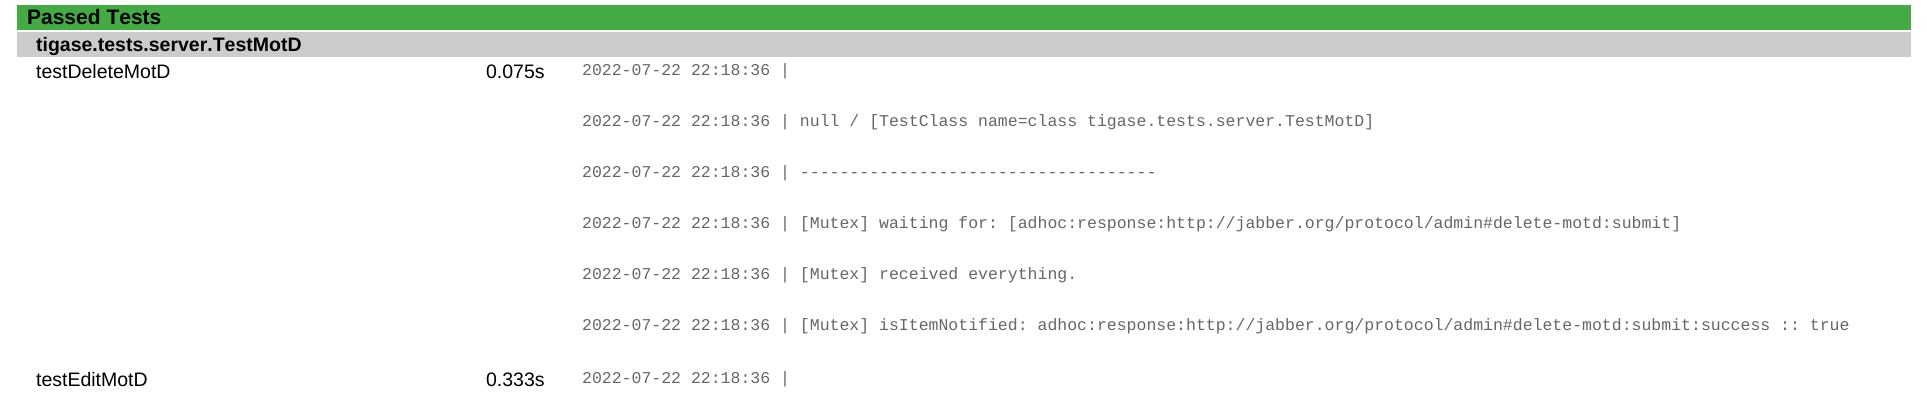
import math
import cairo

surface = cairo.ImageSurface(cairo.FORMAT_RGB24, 1927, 400)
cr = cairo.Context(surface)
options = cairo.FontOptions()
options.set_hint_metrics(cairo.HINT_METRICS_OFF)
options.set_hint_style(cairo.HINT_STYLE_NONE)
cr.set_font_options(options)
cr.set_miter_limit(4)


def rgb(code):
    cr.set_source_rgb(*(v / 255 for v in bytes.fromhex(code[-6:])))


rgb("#ffffff")
cr.paint()
rgb("#44aa44")
cr.rectangle(17, 5, 1894, 25)
cr.fill()
rgb("#cccccc")
cr.rectangle(17, 32, 1894, 25)
cr.fill()
cr.select_font_face("Liberation Sans", cairo.FONT_SLANT_NORMAL, cairo.FONT_WEIGHT_BOLD)
cr.set_font_size(21)
rgb("#000000")
cr.move_to(27, 24)
cr.show_text("Passed Tests")
cr.set_font_size(19.5)
cr.move_to(36, 51)
cr.show_text("tigase.tests.server.TestMotD")
cr.select_font_face("Liberation Sans")
cr.move_to(36, 78)
cr.show_text("testDeleteMotD")
cr.move_to(486, 78)
cr.show_text("0.075s")
cr.select_font_face("Liberation Mono")
cr.set_font_size(16.5)
rgb("#666666")
for x, y, s in [
    (582, 75, "2022-07-22 22:18:36 |"),
    (582, 126, "2022-07-22 22:18:36 | null / [TestClass name=class tigase.tests.server.TestMotD]"),
    (582, 177, "2022-07-22 22:18:36 | ------------------------------------"),
    (582, 228, "2022-07-22 22:18:36 | [Mutex] waiting for: [adhoc:response:http://jabber.org/protocol/admin#delete-motd:submit]"),
    (582, 279, "2022-07-22 22:18:36 | [Mutex] received everything."),
    (582, 330, "2022-07-22 22:18:36 | [Mutex] isItemNotified: adhoc:response:http://jabber.org/protocol/admin#delete-motd:submit:success :: true"),
]:
    cr.move_to(x, y)
    cr.show_text(s)
cr.select_font_face("Liberation Sans")
cr.set_font_size(19.5)
rgb("#000000")
cr.move_to(36, 386)
cr.show_text("testEditMotD")
cr.move_to(486, 386)
cr.show_text("0.333s")
cr.select_font_face("Liberation Mono")
cr.set_font_size(16.5)
rgb("#666666")
cr.move_to(582, 383)
cr.show_text("2022-07-22 22:18:36 |")
surface.write_to_png("page.png")
